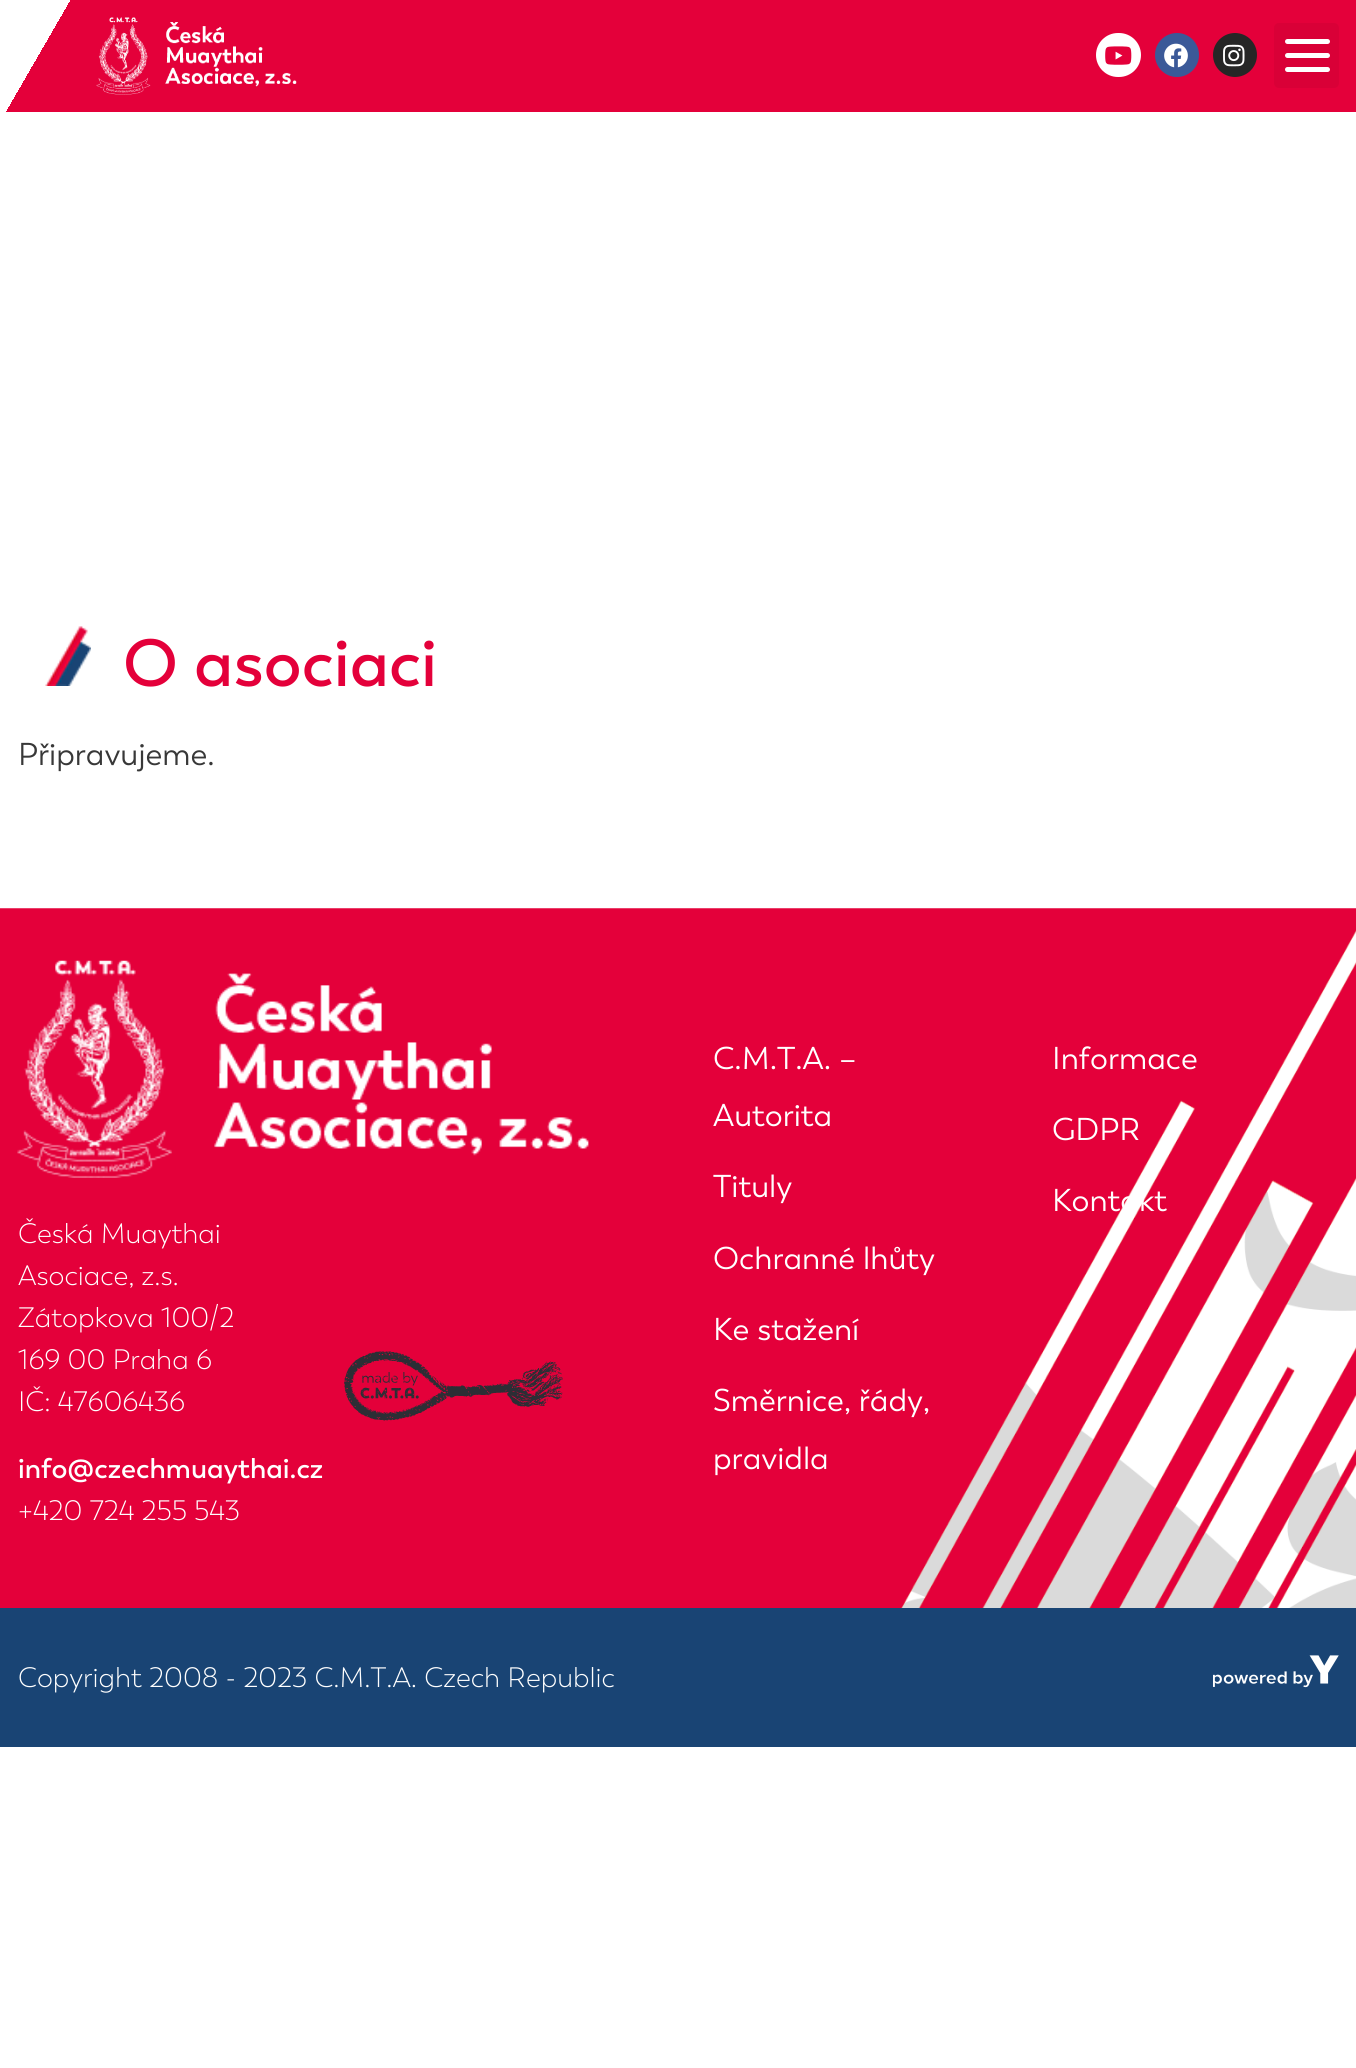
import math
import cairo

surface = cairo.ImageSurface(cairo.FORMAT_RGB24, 1356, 2068)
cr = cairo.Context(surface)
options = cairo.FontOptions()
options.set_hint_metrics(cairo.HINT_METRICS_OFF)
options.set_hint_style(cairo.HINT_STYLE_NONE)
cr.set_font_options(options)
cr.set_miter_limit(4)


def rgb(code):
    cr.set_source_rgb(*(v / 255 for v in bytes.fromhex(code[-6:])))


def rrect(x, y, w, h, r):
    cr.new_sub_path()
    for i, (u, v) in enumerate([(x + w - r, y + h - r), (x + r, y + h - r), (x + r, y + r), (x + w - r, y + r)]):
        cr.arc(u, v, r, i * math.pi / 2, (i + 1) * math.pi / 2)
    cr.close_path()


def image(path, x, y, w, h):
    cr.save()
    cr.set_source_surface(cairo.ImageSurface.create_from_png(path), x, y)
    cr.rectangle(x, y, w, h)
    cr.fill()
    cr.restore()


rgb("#ffffff")
cr.paint()
gradient = cairo.LinearGradient(145, -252, 1211, 364)
gradient.add_color_stop_rgba(0.05, 1, 1, 1, 1)
gradient.add_color_stop_rgba(0.05, 0.894, 0, 0.227, 1)
cr.set_source(gradient)
cr.rectangle(6, 0, 1350, 112)
cr.fill()
image("img/1.png", 96, 17, 201, 78)
rgb("#ffffff")
rrect(1096, 33, 45, 44, 22)
cr.fill()
image("img/2.png", 1105, 46, 27, 19)
rgb("#3b5998")
cr.arc(1177, 55, 22, 0, 2 * math.pi)
cr.fill()
image("img/3.png", 1164, 43, 24, 25)
rgb("#262626")
cr.arc(1235, 55, 22, 0, 2 * math.pi)
cr.fill()
image("img/4.png", 1223, 44, 22, 23)
rgb("#d90037")
rrect(1274, 23, 65, 65, 5)
cr.fill()
rgb("#ffffff")
rrect(1285, 53, 45, 5, 2.5)
cr.fill()
rrect(1285, 39, 45, 5, 2.5)
cr.fill()
rrect(1285, 67, 45, 5, 2.5)
cr.fill()
image("img/5.png", 45, 626, 46, 60)
image("img/6.png", 0, 908, 1356, 700)
image("img/7.png", 17, 960, 572, 218)
image("img/8.png", 344, 1351, 219, 70)
rgb("#194474")
cr.rectangle(0, 1608, 1356, 139)
cr.fill()
image("img/9.png", 1213, 1655, 126, 33)
cr.select_font_face("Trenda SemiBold")
cr.set_font_size(66.5)
rgb("#e4003a")
cr.move_to(123, 686)
cr.show_text("O asociaci")
cr.select_font_face("Trenda")
cr.set_font_size(31.5)
rgb("#383838")
cr.move_to(18, 765)
cr.show_text("Připravujeme.")
cr.select_font_face("Trenda Light")
cr.set_font_size(28)
rgb("#ffffff")
for x, y, s in [
    (18, 1243, "Česká Muaythai"),
    (18, 1285, "Asociace, z.s."),
    (18, 1327, "Zátopkova 100/2"),
    (18, 1369, "169 00 Praha 6"),
    (18, 1411, "IČ: 47606436"),
]:
    cr.move_to(x, y)
    cr.show_text(s)
cr.select_font_face("Trenda SemiBold")
cr.move_to(18, 1478)
cr.show_text("info@czechmuaythai.cz")
cr.select_font_face("Trenda Light")
cr.move_to(18, 1520)
cr.show_text("+420 724 255 543")
cr.select_font_face("Trenda")
cr.set_font_size(31.5)
for x, y, s in [
    (713, 1069, "C.M.T.A. –"),
    (713, 1126, "Autorita"),
    (713, 1197, "Tituly"),
    (713, 1269, "Ochranné lhůty"),
    (713, 1340, "Ke stažení"),
    (713, 1411, "Směrnice, řády,"),
    (713, 1469, "pravidla"),
    (1052, 1069, "Informace"),
    (1052, 1140, "GDPR"),
    (1052, 1211, "Kontakt"),
]:
    cr.move_to(x, y)
    cr.show_text(s)
cr.select_font_face("Trenda Light")
cr.set_font_size(28)
cr.move_to(18, 1687)
cr.show_text("Copyright 2008 - 2023 C.M.T.A. Czech Republic")
surface.write_to_png("page.png")
